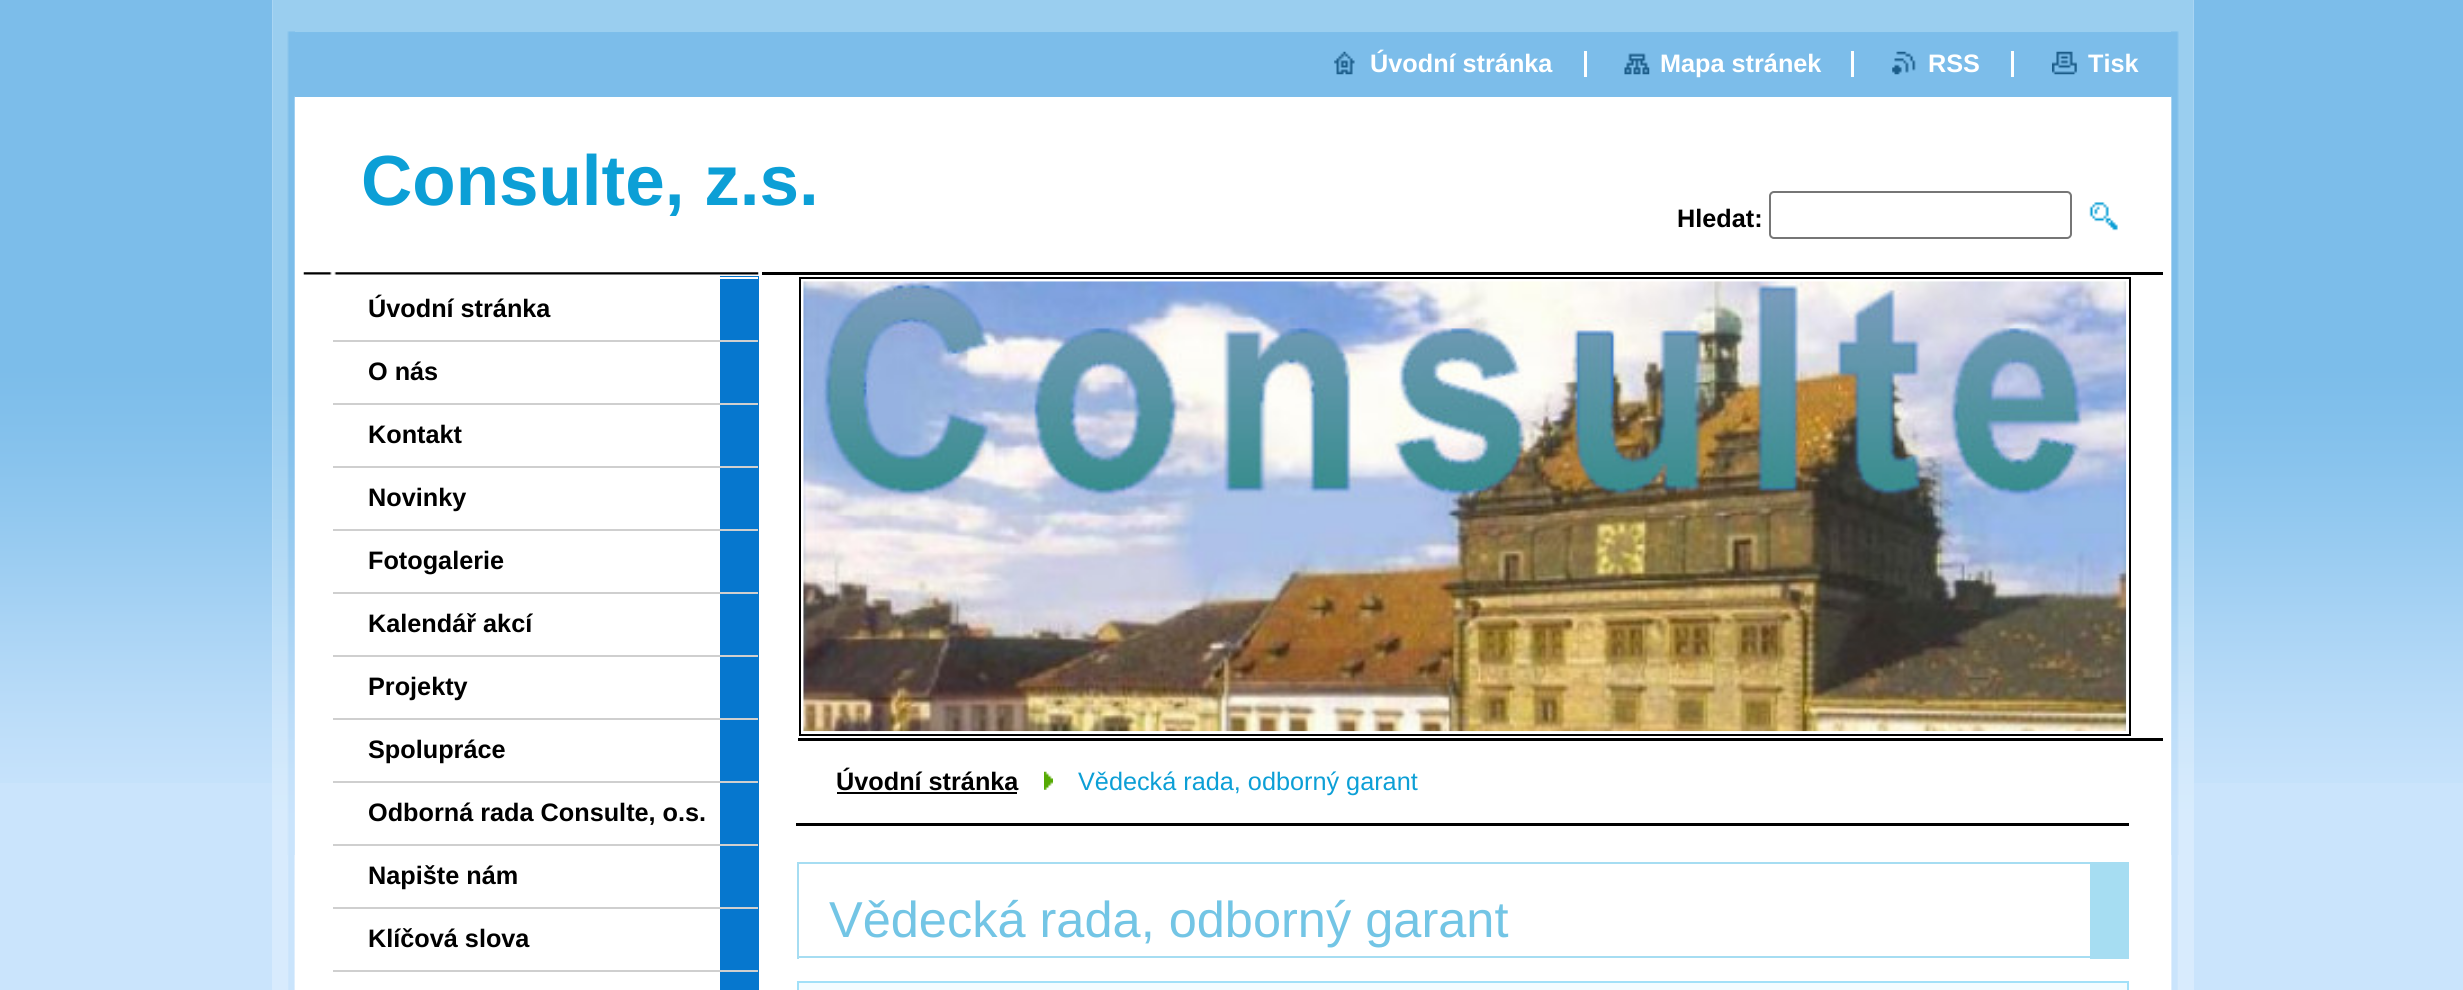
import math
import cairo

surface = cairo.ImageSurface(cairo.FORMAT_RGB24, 2463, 990)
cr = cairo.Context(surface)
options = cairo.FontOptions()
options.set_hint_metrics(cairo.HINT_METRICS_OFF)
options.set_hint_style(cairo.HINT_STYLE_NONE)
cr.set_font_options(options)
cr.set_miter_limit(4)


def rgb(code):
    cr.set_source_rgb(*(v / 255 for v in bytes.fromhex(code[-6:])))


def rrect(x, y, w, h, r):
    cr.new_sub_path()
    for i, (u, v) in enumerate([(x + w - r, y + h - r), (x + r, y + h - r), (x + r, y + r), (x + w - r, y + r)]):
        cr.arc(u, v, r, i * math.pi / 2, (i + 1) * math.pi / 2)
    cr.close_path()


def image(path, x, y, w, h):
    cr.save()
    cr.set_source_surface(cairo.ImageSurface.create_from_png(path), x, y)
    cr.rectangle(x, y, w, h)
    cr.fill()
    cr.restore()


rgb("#cae4fc")
cr.paint()
image("img/1.png", 0, 0, 2463, 783)
rgb("#d8ebfd")
cr.rectangle(272, 0, 1922, 990)
cr.fill()
image("img/2.png", 288, 96, 1890, 894)
image("img/3.png", 272, 0, 1922, 855)
for x, y, w, h, color in [
    (295, 97, 1876, 893, "#ffffff"),
    (295, 31, 1876, 1, "#9aceef"),
    (295, 96, 1876, 1, "#7cbdea"),
]:
    rgb(color)
    cr.rectangle(x, y, w, h)
    cr.fill()
image("img/4.png", 1334, 51, 21, 24)
image("img/5.png", 1624, 53, 26, 22)
rgb("#ffffff")
cr.rectangle(1584, 51, 3, 26)
cr.fill()
image("img/6.png", 1892, 51, 24, 24)
cr.rectangle(1851, 51, 3, 26)
cr.fill()
image("img/7.png", 2052, 51, 25, 24)
cr.rectangle(2011, 51, 3, 26)
cr.fill()
rrect(1770, 192, 301, 46, 4)
rgb("#767676")
cr.stroke()
image("img/8.png", 2089, 202, 29, 29)
image("img/9.png", 303, 272, 456, 3)
for x, y, w, h, color in [
    (720, 276, 39, 714, "#0677ce"),
    (720, 277, 38, 2, "#ffffff"),
    (333, 340, 425, 2, "#cfcfcf"),
    (333, 403, 425, 2, "#cfcfcf"),
    (333, 466, 425, 2, "#cfcfcf"),
    (333, 529, 425, 2, "#cfcfcf"),
    (333, 592, 425, 2, "#cfcfcf"),
    (333, 655, 425, 2, "#cfcfcf"),
    (333, 718, 425, 2, "#cfcfcf"),
    (333, 781, 425, 2, "#cfcfcf"),
    (333, 844, 425, 2, "#cfcfcf"),
    (333, 907, 425, 2, "#cfcfcf"),
    (333, 970, 425, 2, "#cfcfcf"),
    (762, 272, 1401, 3, "#000000"),
    (798, 738, 1365, 3, "#000000"),
]:
    rgb(color)
    cr.rectangle(x, y, w, h)
    cr.fill()
cr.rectangle(800, 278, 1330, 457)
cr.stroke()
image("img/10.png", 803, 281, 1324, 451)
cr.rectangle(796, 823, 1333, 3)
cr.fill()
cr.rectangle(837, 792, 180, 2)
cr.fill()
image("img/11.png", 1044, 771, 9, 19)
for x, y, w, h, color in [
    (797, 862, 1293, 2, "#a6ddf2"),
    (2090, 862, 39, 97, "#a6ddf2"),
    (797, 956, 1293, 2, "#a6ddf2"),
    (797, 862, 2, 97, "#a6ddf2"),
]:
    rgb(color)
    cr.rectangle(x, y, w, h)
    cr.fill()
rgb("#f3fcff")
cr.rectangle(798, 982, 1330, 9)
cr.fill_preserve()
rgb("#a1e0f8")
cr.stroke()
cr.select_font_face("Liberation Sans", cairo.FONT_SLANT_NORMAL, cairo.FONT_WEIGHT_BOLD)
cr.set_font_size(25.25)
rgb("#ffffff")
for x, y, s in [
    (1370, 72, "Úvodní stránka"),
    (1660, 72, "Mapa stránek"),
    (1928, 72, "RSS"),
    (2088, 72, "Tisk"),
]:
    cr.move_to(x, y)
    cr.show_text(s)
cr.set_font_size(71)
rgb("#0c9fd6")
cr.move_to(361, 205)
cr.show_text("Consulte, z.s.")
cr.set_font_size(25.25)
rgb("#000000")
for x, y, s in [
    (1677, 227, "Hledat:"),
    (368, 317, "Úvodní stránka"),
    (368, 380, "O nás"),
    (368, 443, "Kontakt"),
    (368, 506, "Novinky"),
    (368, 569, "Fotogalerie"),
    (368, 632, "Kalendář akcí"),
    (368, 695, "Projekty"),
    (368, 758, "Spolupráce"),
    (368, 821, "Odborná rada Consulte, o.s."),
    (368, 884, "Napište nám"),
    (368, 947, "Klíčová slova"),
    (836, 790, "Úvodní stránka"),
]:
    cr.move_to(x, y)
    cr.show_text(s)
cr.select_font_face("Liberation Sans")
rgb("#0c9fd6")
cr.move_to(1078, 790)
cr.show_text("Vědecká rada, odborný garant")
cr.set_font_size(50.5)
rgb("#73c5e5")
cr.move_to(829, 937)
cr.show_text("Vědecká rada, odborný garant")
surface.write_to_png("page.png")
